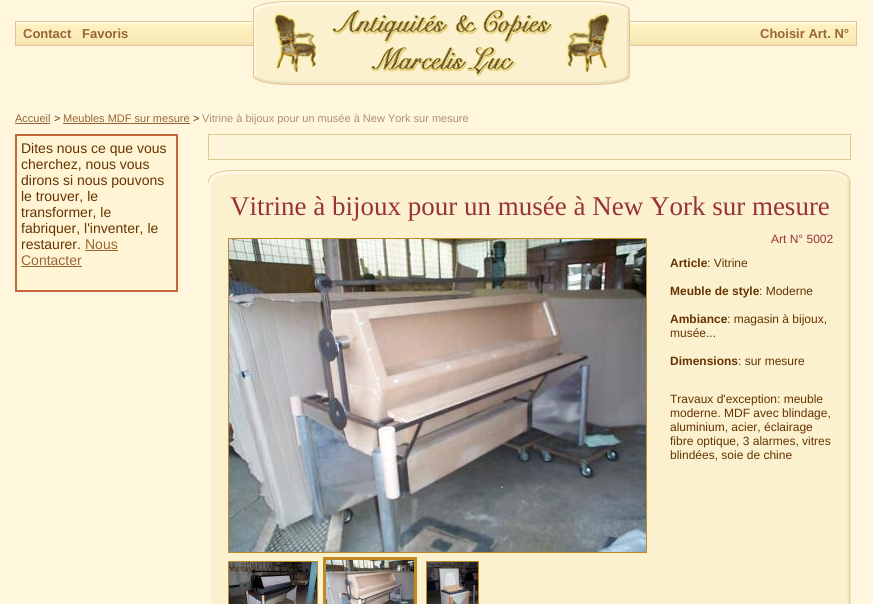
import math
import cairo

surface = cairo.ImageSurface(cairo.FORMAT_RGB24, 873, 604)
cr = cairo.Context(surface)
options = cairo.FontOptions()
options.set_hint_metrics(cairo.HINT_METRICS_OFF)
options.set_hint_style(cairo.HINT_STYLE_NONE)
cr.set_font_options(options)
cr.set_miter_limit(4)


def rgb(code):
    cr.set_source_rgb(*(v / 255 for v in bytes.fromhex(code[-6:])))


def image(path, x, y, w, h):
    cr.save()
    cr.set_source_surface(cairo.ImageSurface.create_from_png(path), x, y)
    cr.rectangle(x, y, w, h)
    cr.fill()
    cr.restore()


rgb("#fef7dd")
cr.paint()
image("img/1.png", 16, 22, 237, 23)
for x, y, w, h, color in [
    (15, 21, 239, 1, "#e7c397"),
    (15, 45, 239, 1, "#e7c397"),
    (15, 21, 1, 25, "#e7c397"),
]:
    rgb(color)
    cr.rectangle(x, y, w, h)
    cr.fill()
image("img/2.png", 253, 1, 377, 84)
image("img/3.png", 630, 22, 226, 23)
for x, y, w, h, color in [
    (630, 21, 227, 1, "#e7c397"),
    (856, 21, 1, 25, "#e7c397"),
    (630, 45, 227, 1, "#e7c397"),
    (15, 123, 35, 1, "#996633"),
    (63, 123, 127, 1, "#996633"),
]:
    rgb(color)
    cr.rectangle(x, y, w, h)
    cr.fill()
rgb("#fff4d3")
cr.rectangle(16, 135, 161, 156)
cr.fill_preserve()
rgb("#c4673d")
cr.stroke()
rgb("#996633")
cr.rectangle(85, 250, 33, 1)
cr.fill()
cr.rectangle(21, 266, 61, 1)
cr.fill()
rgb("#fef6da")
cr.rectangle(208.5, 134.5, 642, 25)
cr.fill_preserve()
rgb("#decb90")
cr.set_line_width(1)
cr.stroke()
image("img/4.png", 231, 170, 597, 13)
image("img/5.png", 208, 170, 23, 13)
image("img/6.png", 828, 170, 23, 13)
rgb("#fbf1ce")
cr.rectangle(211, 183, 636, 421)
cr.fill()
cr.rectangle(228.5, 238.5, 418, 314)
rgb("#c18924")
cr.stroke()
image("img/7.png", 229, 239, 417, 313)
cr.rectangle(228.5, 561.5, 89, 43)
cr.stroke()
image("img/8.png", 229, 562, 88, 42)
cr.rectangle(324.5, 558.5, 91, 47)
cr.set_line_width(3)
cr.stroke()
image("img/9.png", 326, 560, 88, 44)
cr.rectangle(426.5, 561.5, 52, 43)
cr.set_line_width(1)
cr.stroke()
image("img/10.png", 427, 562, 51, 42)
image("img/11.png", 847, 183, 4, 421)
cr.select_font_face("Liberation Sans", cairo.FONT_SLANT_NORMAL, cairo.FONT_WEIGHT_BOLD)
cr.set_font_size(13)
rgb("#996633")
for x, y, s in [
    (23, 38, "Contact"),
    (82, 38, "Favoris"),
    (760, 38, "Choisir Art. N°"),
]:
    cr.move_to(x, y)
    cr.show_text(s)
cr.select_font_face("Liberation Sans")
cr.set_font_size(11)
cr.move_to(15, 122)
cr.show_text("Accueil")
rgb("#663300")
cr.move_to(54, 122)
cr.show_text(">")
rgb("#996633")
cr.move_to(63, 122)
cr.show_text("Meubles MDF sur mesure")
rgb("#663300")
cr.move_to(193, 122)
cr.show_text(">")
rgb("#af8f70")
cr.move_to(202, 122)
cr.show_text("Vitrine à bijoux pour un musée à New York sur mesure")
cr.set_font_size(14)
rgb("#663300")
for x, y, s in [
    (21, 153, "Dites nous ce que vous"),
    (21, 169, "cherchez, nous vous"),
    (21, 185, "dirons si nous pouvons"),
    (21, 201, "le trouver, le"),
    (21, 217, "transformer, le"),
    (21, 233, "fabriquer, l'inventer, le"),
    (21, 249, "restaurer."),
]:
    cr.move_to(x, y)
    cr.show_text(s)
rgb("#996633")
cr.move_to(85, 249)
cr.show_text("Nous")
cr.move_to(21, 265)
cr.show_text("Contacter")
cr.select_font_face("Liberation Serif")
cr.set_font_size(27)
rgb("#993333")
cr.move_to(230, 215)
cr.show_text("Vitrine à bijoux pour un musée à New York sur mesure")
cr.select_font_face("Liberation Sans")
cr.set_font_size(12)
cr.move_to(771, 243)
cr.show_text("Art N° 5002")
cr.select_font_face("Liberation Sans", cairo.FONT_SLANT_NORMAL, cairo.FONT_WEIGHT_BOLD)
rgb("#663300")
cr.move_to(670, 267)
cr.show_text("Article")
cr.select_font_face("Liberation Sans")
cr.move_to(707, 267)
cr.show_text(": Vitrine")
cr.select_font_face("Liberation Sans", cairo.FONT_SLANT_NORMAL, cairo.FONT_WEIGHT_BOLD)
cr.move_to(670, 295)
cr.show_text("Meuble de style")
cr.select_font_face("Liberation Sans")
cr.move_to(759, 295)
cr.show_text(": Moderne")
cr.select_font_face("Liberation Sans", cairo.FONT_SLANT_NORMAL, cairo.FONT_WEIGHT_BOLD)
cr.move_to(670, 323)
cr.show_text("Ambiance")
cr.select_font_face("Liberation Sans")
cr.move_to(727, 323)
cr.show_text(": magasin à bijoux,")
cr.move_to(670, 337)
cr.show_text("musée...")
cr.select_font_face("Liberation Sans", cairo.FONT_SLANT_NORMAL, cairo.FONT_WEIGHT_BOLD)
cr.move_to(670, 365)
cr.show_text("Dimensions")
cr.select_font_face("Liberation Sans")
for x, y, s in [
    (738, 365, ": sur mesure"),
    (670, 403, "Travaux d'exception: meuble"),
    (670, 417, "moderne. MDF avec blindage,"),
    (670, 431, "aluminium, acier, éclairage"),
    (670, 445, "fibre optique, 3 alarmes, vitres"),
    (670, 459, "blindées, soie de chine"),
]:
    cr.move_to(x, y)
    cr.show_text(s)
surface.write_to_png("page.png")
